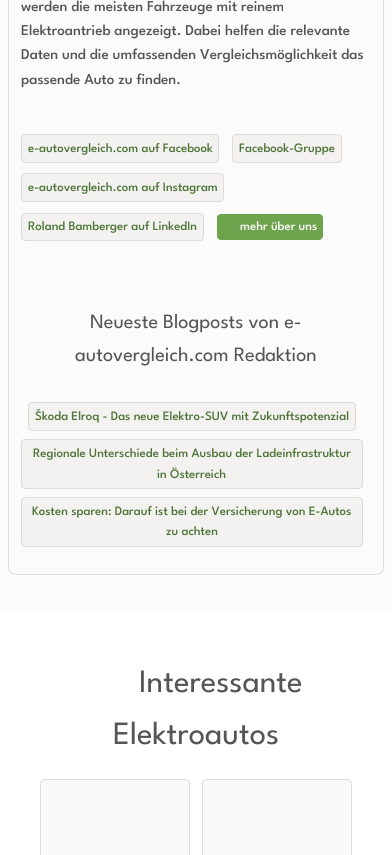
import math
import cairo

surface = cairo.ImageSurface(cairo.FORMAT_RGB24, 392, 855)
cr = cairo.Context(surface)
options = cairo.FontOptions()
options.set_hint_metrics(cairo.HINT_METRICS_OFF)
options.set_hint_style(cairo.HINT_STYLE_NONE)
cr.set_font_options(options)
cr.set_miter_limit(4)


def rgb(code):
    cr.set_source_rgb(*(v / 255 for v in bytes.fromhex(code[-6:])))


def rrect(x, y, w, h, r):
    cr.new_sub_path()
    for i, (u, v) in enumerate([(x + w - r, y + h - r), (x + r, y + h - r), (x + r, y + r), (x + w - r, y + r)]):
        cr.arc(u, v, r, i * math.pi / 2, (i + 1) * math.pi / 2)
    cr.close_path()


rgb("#fbfbfb")
cr.paint()
rrect(8.5, -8.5, 375, 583, 7.5)
rgb("#dedbd7")
cr.set_line_width(1)
cr.stroke()
rgb("#f3f2f0")
rrect(21.5, 134.5, 197, 28, 3.5)
cr.fill_preserve()
rgb("#dedbd7")
cr.stroke()
rgb("#f3f2f0")
rrect(232.5, 134.5, 109, 28, 3.5)
cr.fill_preserve()
rgb("#dedbd7")
cr.stroke()
rgb("#f3f2f0")
rrect(21.5, 173.5, 202, 28, 3.5)
cr.fill_preserve()
rgb("#dedbd7")
cr.stroke()
rgb("#f3f2f0")
rrect(21.5, 213.5, 182, 27, 3.5)
cr.fill_preserve()
rgb("#dedbd7")
cr.stroke()
rgb("#6da34d")
rrect(217, 214, 106, 26, 4)
cr.fill()
rgb("#f3f2f0")
rrect(28.5, 402.5, 327, 28, 3.5)
cr.fill_preserve()
rgb("#dedbd7")
cr.stroke()
rgb("#f3f2f0")
rrect(21.5, 439.5, 341, 49, 3.5)
cr.fill_preserve()
rgb("#dedbd7")
cr.stroke()
rgb("#f3f2f0")
rrect(21.5, 497.5, 341, 49, 3.5)
cr.fill_preserve()
rgb("#dedbd7")
cr.stroke()
rgb("#ffffff")
cr.rectangle(0, 612, 392, 243)
cr.fill()
rgb("#f9f9f9")
rrect(40.5, 779.5, 149, 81, 4.5)
cr.fill_preserve()
rgb("#dddddd")
cr.stroke()
rgb("#f9f9f9")
rrect(202.5, 779.5, 149, 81, 4.5)
cr.fill_preserve()
rgb("#dddddd")
cr.stroke()
cr.select_font_face("League Spartan Medium")
cr.set_font_size(15.1)
rgb("#555555")
for x, y, s in [
    (21, 11, "werden die meisten Fahrzeuge mit reinem"),
    (21, 35, "Elektroantrieb angezeigt. Dabei helfen die relevante"),
    (21, 59, "Daten und die umfassenden Vergleichsmöglichkeit das"),
    (21, 84, "passende Auto zu finden."),
]:
    cr.move_to(x, y)
    cr.show_text(s)
cr.set_font_size(12.85)
rgb("#4d7336")
for x, y, s in [
    (28, 152, "e-autovergleich.com auf Facebook"),
    (239, 152, "Facebook-Gruppe"),
    (28, 191, "e-autovergleich.com auf Instagram"),
    (28, 230, "Roland Bamberger auf LinkedIn"),
]:
    cr.move_to(x, y)
    cr.show_text(s)
rgb("#ffffff")
cr.move_to(240, 230)
cr.show_text("mehr über uns")
cr.select_font_face("League Spartan")
cr.set_font_size(20.3)
rgb("#555555")
cr.move_to(90, 328)
cr.show_text("Neueste Blogposts von e-")
cr.move_to(75, 361)
cr.show_text("autovergleich.com Redaktion")
cr.select_font_face("League Spartan Medium")
cr.set_font_size(12.85)
rgb("#4d7336")
for x, y, s in [
    (35, 420, "Škoda Elroq - Das neue Elektro-SUV mit Zukunftspotenzial"),
    (33, 457, "Regionale Unterschiede beim Ausbau der Ladeinfrastruktur"),
    (157, 478, "in Österreich"),
    (32, 515, "Kosten sparen: Darauf ist bei der Versicherung von E-Autos"),
    (166, 535, "zu achten"),
]:
    cr.move_to(x, y)
    cr.show_text(s)
cr.select_font_face("League Spartan")
cr.set_font_size(32.5)
rgb("#555555")
cr.move_to(139, 692)
cr.show_text("Interessante")
cr.move_to(113, 744)
cr.show_text("Elektroautos")
surface.write_to_png("page.png")
